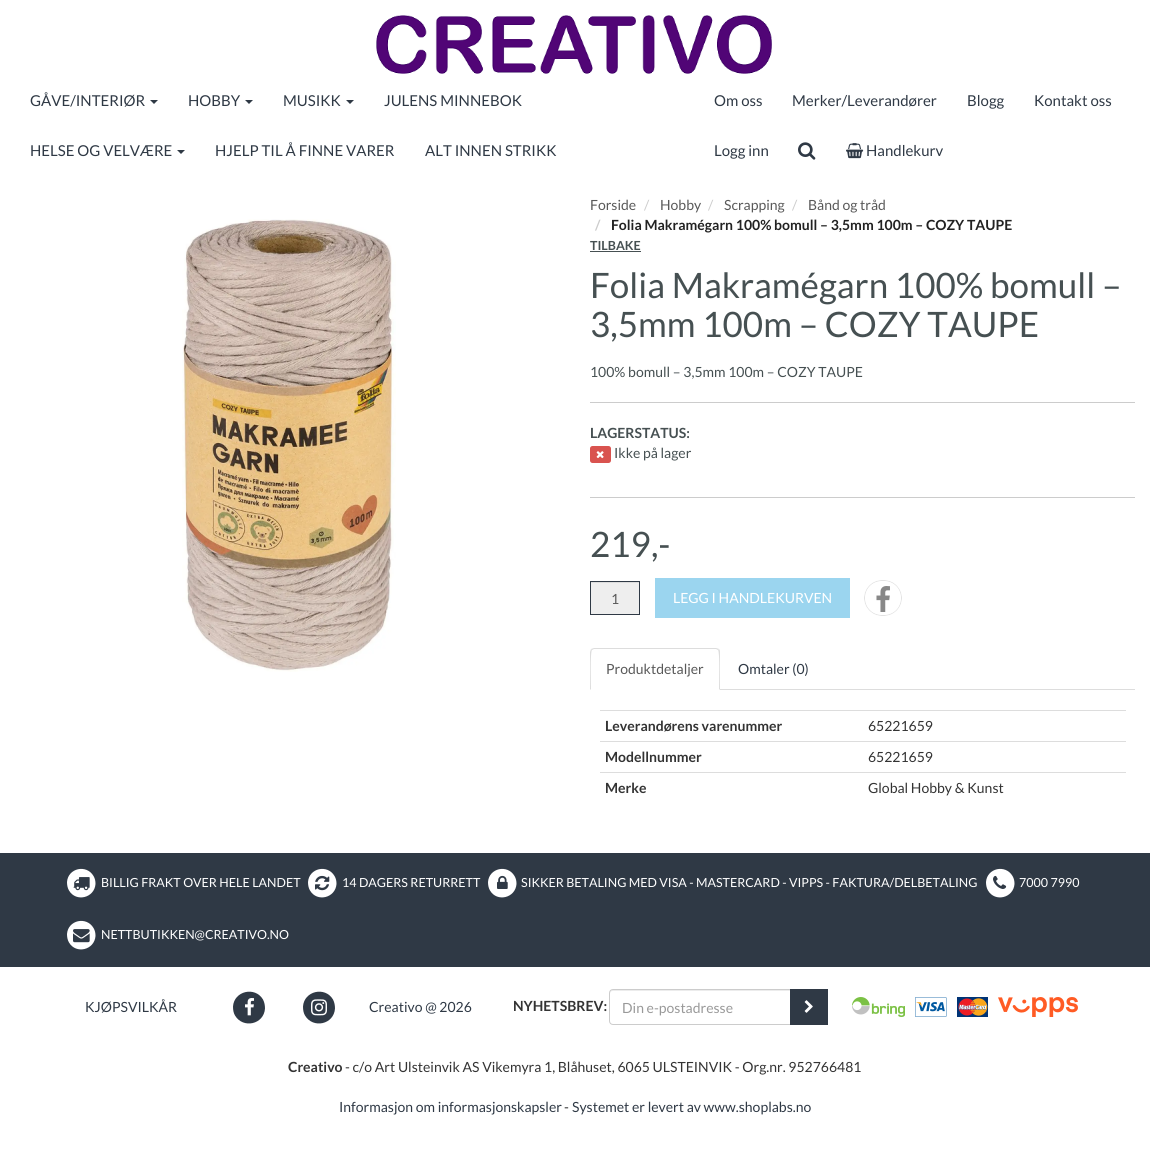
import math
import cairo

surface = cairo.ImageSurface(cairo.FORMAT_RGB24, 1150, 1164)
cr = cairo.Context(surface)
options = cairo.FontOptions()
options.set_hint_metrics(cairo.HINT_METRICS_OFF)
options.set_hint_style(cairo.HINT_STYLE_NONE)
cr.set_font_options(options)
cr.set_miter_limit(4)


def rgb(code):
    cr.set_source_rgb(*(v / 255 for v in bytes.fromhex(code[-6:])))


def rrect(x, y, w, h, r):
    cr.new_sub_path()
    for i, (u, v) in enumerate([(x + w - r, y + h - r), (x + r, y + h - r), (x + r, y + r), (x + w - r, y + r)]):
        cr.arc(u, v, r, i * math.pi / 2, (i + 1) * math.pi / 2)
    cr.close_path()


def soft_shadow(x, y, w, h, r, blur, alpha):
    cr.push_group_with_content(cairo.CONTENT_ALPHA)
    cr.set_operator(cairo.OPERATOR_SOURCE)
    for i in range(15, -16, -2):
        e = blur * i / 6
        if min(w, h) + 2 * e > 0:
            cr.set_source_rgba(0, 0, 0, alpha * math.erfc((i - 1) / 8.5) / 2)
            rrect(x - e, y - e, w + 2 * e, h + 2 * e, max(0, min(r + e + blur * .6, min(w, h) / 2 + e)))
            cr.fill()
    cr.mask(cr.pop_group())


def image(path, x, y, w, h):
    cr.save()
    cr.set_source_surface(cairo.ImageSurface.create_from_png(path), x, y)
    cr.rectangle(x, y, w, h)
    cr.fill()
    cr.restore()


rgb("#ffffff")
cr.paint()
image("img/1.png", 376, 15, 396, 59)
rgb("#2f3945")
cr.new_path()
cr.move_to(150, 100)
cr.line_to(158, 100)
cr.line_to(154, 104)
cr.close_path()
cr.fill()
cr.new_path()
cr.move_to(245, 100)
cr.line_to(253, 100)
cr.line_to(249, 104)
cr.close_path()
cr.fill()
cr.new_path()
cr.move_to(346, 100)
cr.line_to(354, 100)
cr.line_to(350, 104)
cr.close_path()
cr.fill()
cr.new_path()
cr.move_to(177, 150)
cr.line_to(185, 150)
cr.line_to(181, 154)
cr.close_path()
cr.fill()
image("img/2.png", 798, 142, 18, 18)
image("img/3.png", 846, 143, 18, 16)
image("img/4.png", 182, 219, 214, 453)
rgb("#465052")
cr.rectangle(590, 251, 51, 1)
cr.fill()
rgb("#cccccc")
cr.rectangle(590, 402, 545, 1)
cr.fill()
rgb("#d9534f")
rrect(590, 446, 21, 17, 2.5)
cr.fill()
image("img/5.png", 596, 451, 8, 8)
for x, y, w, h, color in [
    (590, 497, 545, 1, "#cccccc"),
    (591, 583, 48, 31, "#eeeeee"),
    (591, 582, 48, 1, "#dcdcdc"),
]:
    rgb(color)
    cr.rectangle(x, y, w, h)
    cr.fill()
cr.rectangle(590.5, 581.5, 49, 33)
rgb("#2f3945")
cr.set_line_width(1)
cr.stroke()
rgb("#9bd5ef")
cr.rectangle(655, 578, 195, 40)
cr.fill()
cr.save()
cr.set_fill_rule(cairo.FILL_RULE_EVEN_ODD)
cr.new_path()
cr.move_to(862, 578)
cr.line_to(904, 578)
cr.line_to(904, 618)
cr.line_to(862, 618)
cr.close_path()
cr.move_to(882, 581)
cr.line_to(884, 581)
cr.curve_to(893.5, 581, 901, 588.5, 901, 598)
cr.curve_to(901, 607.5, 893.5, 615, 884, 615)
cr.line_to(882, 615)
cr.curve_to(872.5, 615, 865, 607.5, 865, 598)
cr.curve_to(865, 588.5, 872.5, 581, 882, 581)
cr.close_path()
cr.clip()
rgb("#888888")
soft_shadow(865, 581, 36, 34, 17, 0.5, 1)
cr.restore()
image("img/6.png", 876, 586, 14, 26)
rgb("#dddddd")
cr.rectangle(720, 689, 415, 1)
cr.fill()
cr.new_path()
cr.move_to(594, 648)
cr.line_to(591, 649)
cr.line_to(592, 650)
cr.line_to(594, 649)
cr.line_to(716, 649)
cr.line_to(718, 650)
cr.line_to(719, 649)
cr.line_to(716, 648)
cr.close_path()
cr.fill()
cr.new_path()
cr.move_to(720, 690)
cr.line_to(720, 652)
cr.curve_to(720, 651, 720, 650, 719, 649)
cr.line_to(718, 650)
cr.curve_to(720, 652, 719, 684, 719, 689)
cr.close_path()
cr.fill()
cr.new_path()
cr.move_to(590, 690)
cr.line_to(591, 689)
cr.curve_to(591, 684, 590, 652, 592, 650)
cr.line_to(591, 649)
cr.line_to(590, 652)
cr.close_path()
cr.fill()
for x, y, w, h, color in [
    (600, 710, 526, 1, "#dddddd"),
    (600, 741, 526, 1, "#dddddd"),
    (600, 772, 526, 1, "#dddddd"),
    (0, 853, 1150, 114, "#2f3945"),
]:
    rgb(color)
    cr.rectangle(x, y, w, h)
    cr.fill()
rgb("#ffffff")
cr.new_path()
cr.move_to(93.5, 876)
cr.curve_to(95, 878.5, 95.5, 881, 95.5, 884)
cr.curve_to(94.5, 898, 76, 902.5, 69, 890.5)
cr.curve_to(67.5, 888, 67, 885, 67, 882)
cr.curve_to(68, 868, 86.5, 864, 93.5, 876)
cr.close_path()
cr.fill()
image("img/7.png", 73, 877, 17, 14)
cr.new_path()
cr.move_to(334.5, 876)
cr.curve_to(336, 878.5, 336.5, 881, 336.5, 884)
cr.curve_to(335.5, 898, 317, 902.5, 310, 890.5)
cr.curve_to(308.5, 888, 308, 885, 308, 882)
cr.curve_to(309, 868, 327.5, 864, 334.5, 876)
cr.close_path()
cr.fill()
image("img/8.png", 315, 875, 15, 16)
cr.new_path()
cr.move_to(514.5, 876)
cr.curve_to(516, 878.5, 516.5, 881, 516.5, 884)
cr.curve_to(515.5, 898, 497, 902.5, 490, 890.5)
cr.curve_to(488.5, 888, 488, 885, 488, 882)
cr.curve_to(489, 868, 507.5, 864, 514.5, 876)
cr.close_path()
cr.fill()
image("img/9.png", 497, 875, 11, 14)
cr.new_path()
cr.move_to(1012.5, 876)
cr.curve_to(1014, 878.5, 1014.5, 881, 1014.5, 884)
cr.curve_to(1013.5, 898, 995, 902.5, 988, 890.5)
cr.curve_to(986.5, 888, 986, 885, 986, 882)
cr.curve_to(987, 868, 1005.5, 864, 1012.5, 876)
cr.close_path()
cr.fill()
image("img/10.png", 993, 875, 14, 14)
cr.new_path()
cr.move_to(93.5, 928)
cr.curve_to(95, 930.5, 95.5, 933, 95.5, 936)
cr.curve_to(94.5, 950, 76, 954.5, 69, 942.5)
cr.curve_to(67.5, 940, 67, 937, 67, 934)
cr.curve_to(68, 920, 86.5, 916, 93.5, 928)
cr.close_path()
cr.fill()
image("img/11.png", 73, 929, 17, 14)
rgb("#2f3945")
cr.new_path()
cr.move_to(263, 999.5)
cr.curve_to(264.5, 1002.5, 265, 1005.5, 265, 1008.5)
cr.curve_to(264, 1024.5, 243, 1029, 235, 1015.5)
cr.curve_to(233.5, 1013, 233, 1010, 233, 1006.5)
cr.curve_to(234, 991, 255, 986, 263, 999.5)
cr.close_path()
cr.fill()
image("img/12.png", 245, 998, 9, 18)
cr.new_path()
cr.move_to(333, 999.5)
cr.curve_to(334.5, 1002.5, 335, 1005.5, 335, 1008.5)
cr.curve_to(334, 1024.5, 313, 1029, 305, 1015.5)
cr.curve_to(303.5, 1013, 303, 1010, 303, 1006.5)
cr.curve_to(304, 991, 325, 986, 333, 999.5)
cr.close_path()
cr.fill()
image("img/13.png", 311, 999, 16, 17)
rgb("#ececec")
cr.new_path()
cr.move_to(613, 991)
cr.line_to(790, 991)
cr.line_to(790, 990)
cr.line_to(612, 990)
cr.curve_to(610, 991, 610, 992, 610, 994)
cr.curve_to(610, 992, 611, 991, 613, 991)
cr.close_path()
cr.fill()
cr.new_path()
cr.move_to(613, 989.5)
cr.line_to(790.5, 989.5)
cr.line_to(790.5, 1024.5)
cr.line_to(613, 1024.5)
cr.curve_to(611, 1024.5, 609.5, 1023, 609.5, 1021)
cr.line_to(609.5, 993)
cr.curve_to(609.5, 991, 611, 989.5, 613, 989.5)
cr.close_path()
rgb("#cccccc")
cr.stroke()
rgb("#2f3945")
cr.rectangle(790, 989, 38, 36)
cr.fill()
image("img/14.png", 804, 1000, 9, 13)
image("img/15.png", 852, 997, 53, 20)
image("img/16.png", 915, 997, 32, 20)
image("img/17.png", 957, 997, 31, 20)
image("img/18.png", 998, 997, 80, 20)
cr.select_font_face("Lato")
cr.set_font_size(15)
for x, y, s in [
    (30, 106, "GÅVE/INTERIØR"),
    (188, 106, "HOBBY"),
    (283, 106, "MUSIKK"),
    (384, 106, "JULENS MINNEBOK"),
    (30, 156, "HELSE OG VELVÆRE"),
    (215, 156, "HJELP TIL Å FINNE VARER"),
    (425, 156, "ALT INNEN STRIKK"),
    (714, 106, "Om oss"),
    (792, 106, "Merker/Leverandører"),
    (967, 106, "Blogg"),
    (1034, 106, "Kontakt oss"),
    (714, 156, "Logg inn"),
    (866, 156, "Handlekurv"),
]:
    cr.move_to(x, y)
    cr.show_text(s)
cr.set_font_size(14)
rgb("#595959")
cr.move_to(590, 210)
cr.show_text("Forside")
rgb("#cccccc")
cr.move_to(644, 210)
cr.show_text("/")
rgb("#595959")
cr.move_to(660, 210)
cr.show_text("Hobby")
rgb("#cccccc")
cr.move_to(708, 210)
cr.show_text("/")
rgb("#595959")
cr.move_to(724, 210)
cr.show_text("Scrapping")
rgb("#cccccc")
cr.move_to(792, 210)
cr.show_text("/")
rgb("#595959")
cr.move_to(808, 210)
cr.show_text("Bånd og tråd")
cr.select_font_face("Lato", cairo.FONT_SLANT_NORMAL, cairo.FONT_WEIGHT_BOLD)
rgb("#cccccc")
cr.move_to(595, 230)
cr.show_text("/")
rgb("#222222")
cr.move_to(611, 230)
cr.show_text("Folia Makramégarn 100% bomull – 3,5mm 100m – COZY TAUPE")
cr.set_font_size(12.5)
rgb("#465052")
cr.move_to(590, 250)
cr.show_text("TILBAKE")
cr.select_font_face("Lato")
cr.set_font_size(35)
cr.move_to(590, 298)
cr.show_text("Folia Makramégarn 100% bomull –")
cr.move_to(590, 337)
cr.show_text("3,5mm 100m – COZY TAUPE")
cr.set_font_size(14)
cr.move_to(590, 377)
cr.show_text("100% bomull – 3,5mm 100m – COZY TAUPE")
cr.select_font_face("Lato", cairo.FONT_SLANT_NORMAL, cairo.FONT_WEIGHT_BOLD)
cr.move_to(590, 438)
cr.show_text("LAGERSTATUS:")
cr.select_font_face("Lato")
cr.move_to(614, 458)
cr.show_text("Ikke på lager")
cr.set_font_size(35)
cr.move_to(590, 557)
cr.show_text("219,-")
cr.set_font_size(14)
rgb("#595959")
cr.move_to(611, 604)
cr.show_text("1")
rgb("#ffffff")
cr.move_to(673, 603)
cr.show_text("LEGG I HANDLEKURVEN")
rgb("#595959")
cr.move_to(606, 674)
cr.show_text("Produktdetaljer")
rgb("#2f3945")
cr.move_to(738, 674)
cr.show_text("Omtaler (0)")
cr.select_font_face("Lato", cairo.FONT_SLANT_NORMAL, cairo.FONT_WEIGHT_BOLD)
rgb("#333333")
cr.move_to(605, 731)
cr.show_text("Leverandørens varenummer")
cr.select_font_face("Lato")
cr.move_to(868, 731)
cr.show_text("65221659")
cr.select_font_face("Lato", cairo.FONT_SLANT_NORMAL, cairo.FONT_WEIGHT_BOLD)
cr.move_to(605, 762)
cr.show_text("Modellnummer")
cr.select_font_face("Lato")
cr.move_to(868, 762)
cr.show_text("65221659")
cr.select_font_face("Lato", cairo.FONT_SLANT_NORMAL, cairo.FONT_WEIGHT_BOLD)
cr.move_to(605, 793)
cr.show_text("Merke")
cr.select_font_face("Lato")
cr.move_to(868, 793)
cr.show_text("Global Hobby & Kunst")
cr.set_font_size(12.5)
rgb("#ffffff")
for x, y, s in [
    (101, 887, "BILLIG FRAKT OVER HELE LANDET"),
    (342, 887, "14 DAGERS RETURRETT"),
    (521, 887, "SIKKER BETALING MED VISA - MASTERCARD - VIPPS - FAKTURA/DELBETALING"),
    (1019, 887, "7000 7990"),
    (101, 939, "NETTBUTIKKEN@CREATIVO.NO"),
]:
    cr.move_to(x, y)
    cr.show_text(s)
cr.set_font_size(14)
rgb("#2f3945")
cr.move_to(85, 1012)
cr.show_text("KJØPSVILKÅR")
cr.move_to(369, 1012)
cr.show_text("Creativo @ 2026")
cr.select_font_face("Lato", cairo.FONT_SLANT_NORMAL, cairo.FONT_WEIGHT_BOLD)
rgb("#333333")
cr.move_to(513, 1011)
cr.show_text("NYHETSBREV:")
cr.select_font_face("Lato")
rgb("#999999")
cr.move_to(622, 1013)
cr.show_text("Din e-postadresse")
cr.select_font_face("Lato", cairo.FONT_SLANT_NORMAL, cairo.FONT_WEIGHT_BOLD)
rgb("#333333")
cr.move_to(288, 1072)
cr.show_text("Creativo")
cr.select_font_face("Lato")
cr.move_to(345, 1072)
cr.show_text("- c/o Art Ulsteinvik AS Vikemyra 1, Blåhuset, 6065 ULSTEINVIK - Org.nr. 952766481")
rgb("#2f3945")
cr.move_to(339, 1112)
cr.show_text("Informasjon om informasjonskapsler")
rgb("#333333")
cr.move_to(564, 1112)
cr.show_text("-")
rgb("#2f3945")
cr.move_to(572, 1112)
cr.show_text("Systemet er levert av www.shoplabs.no")
surface.write_to_png("page.png")
